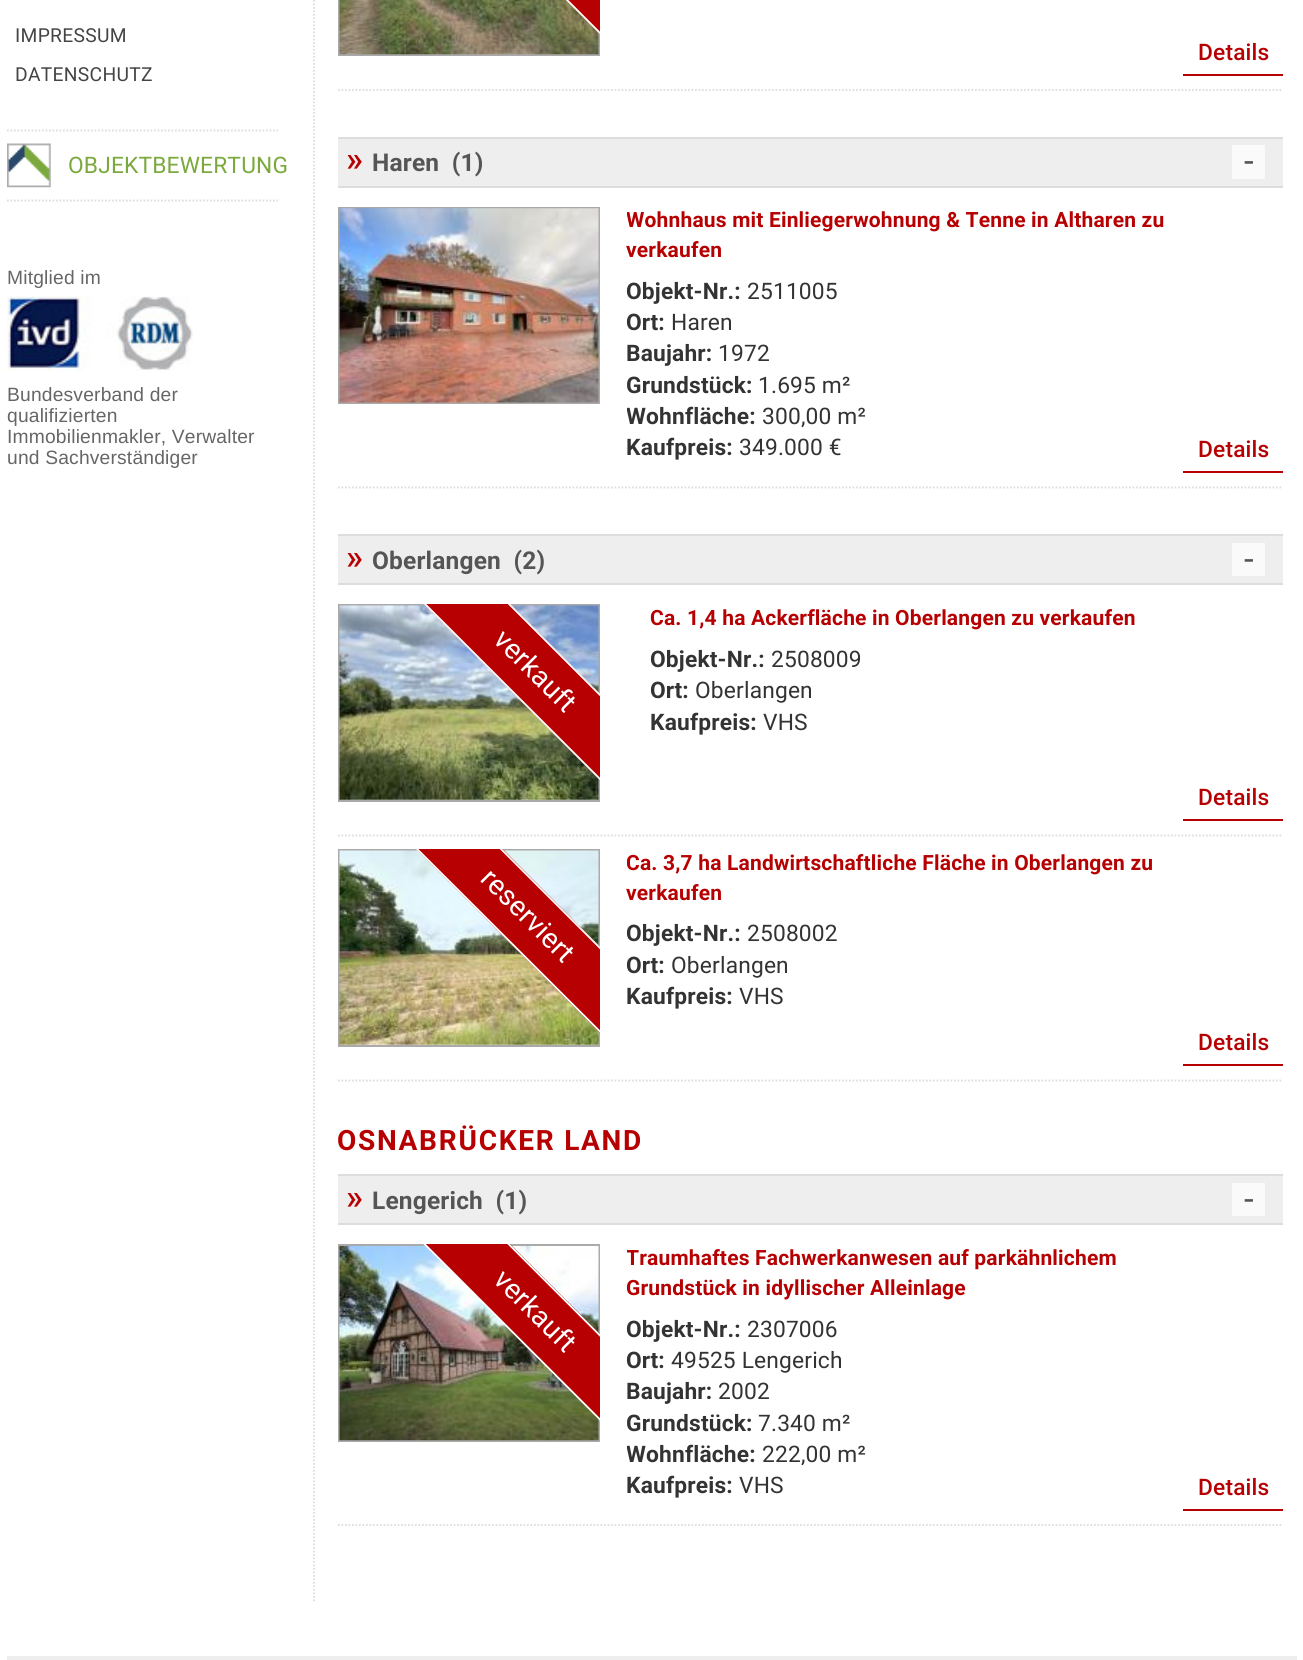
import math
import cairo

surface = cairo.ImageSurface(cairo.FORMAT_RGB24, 1303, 1660)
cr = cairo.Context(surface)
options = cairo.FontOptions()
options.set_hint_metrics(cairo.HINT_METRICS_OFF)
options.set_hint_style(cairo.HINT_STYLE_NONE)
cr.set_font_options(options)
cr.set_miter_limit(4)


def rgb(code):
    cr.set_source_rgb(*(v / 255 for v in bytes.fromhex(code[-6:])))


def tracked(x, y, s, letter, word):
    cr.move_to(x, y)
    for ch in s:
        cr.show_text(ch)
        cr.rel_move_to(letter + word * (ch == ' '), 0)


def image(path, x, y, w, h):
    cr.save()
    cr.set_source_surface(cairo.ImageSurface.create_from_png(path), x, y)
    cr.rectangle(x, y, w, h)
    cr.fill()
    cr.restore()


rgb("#ffffff")
cr.paint()
image("img/1.png", 7, 143, 44, 45)
cr.new_path()
cr.move_to(7, 130.5)
cr.line_to(278, 130.5)
rgb("#dddddd")
cr.set_line_width(1.8)
cr.set_dash([1.75, 1.75])
cr.stroke()
cr.new_path()
cr.move_to(7, 200.5)
cr.line_to(278, 200.5)
cr.stroke()
image("img/2.png", 7, 295, 186, 76)
cr.new_path()
cr.move_to(314, -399)
cr.line_to(314, 1603)
cr.stroke()
cr.new_path()
cr.move_to(338, 90)
cr.line_to(1283, 90)
cr.stroke()
cr.rectangle(339, -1, 260, 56)
rgb("#aaaaaa")
cr.set_line_width(2)
cr.set_dash([])
cr.stroke()
image("img/3.png", 339, 0, 260, 55)
cr.save()
cr.rectangle(338, 0, 262, 65)
cr.clip()
rgb("#b60001")
cr.new_path()
cr.move_to(444, -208)
cr.line_to(668, 16)
cr.line_to(625, 59)
cr.line_to(401, -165)
cr.close_path()
cr.fill()
cr.new_path()
cr.move_to(444, -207)
cr.line_to(666.5, 15.5)
cr.line_to(624.5, 57.5)
cr.line_to(402, -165)
cr.close_path()
rgb("#ffffff")
cr.set_line_width(1.8)
cr.stroke()
cr.restore()
for x, y, w, h, color in [
    (1183, 74, 100, 2, "#b60001"),
    (338, 139, 945, 47, "#eeeeee"),
    (338, 137, 945, 2, "#dddddd"),
    (338, 186, 945, 2, "#dddddd"),
    (1232, 145, 33, 34, "#fafafa"),
]:
    rgb(color)
    cr.rectangle(x, y, w, h)
    cr.fill()
cr.new_path()
cr.move_to(338, 487.5)
cr.line_to(1283, 487.5)
rgb("#dddddd")
cr.set_line_width(1.8)
cr.set_dash([1.75, 1.75])
cr.stroke()
cr.rectangle(339, 208, 260, 195)
rgb("#aaaaaa")
cr.set_line_width(2)
cr.set_dash([])
cr.stroke()
image("img/4.png", 339, 208, 260, 195)
for x, y, w, h, color in [
    (1183, 471, 100, 2, "#b60001"),
    (338, 536, 945, 47, "#eeeeee"),
    (338, 534, 945, 2, "#dddddd"),
    (338, 583, 945, 2, "#dddddd"),
    (1232, 543, 33, 33, "#fafafa"),
]:
    rgb(color)
    cr.rectangle(x, y, w, h)
    cr.fill()
cr.new_path()
cr.move_to(338, 835.5)
cr.line_to(1283, 835.5)
rgb("#dddddd")
cr.set_line_width(1.8)
cr.set_dash([1.75, 1.75])
cr.stroke()
cr.rectangle(339, 605, 260, 196)
rgb("#aaaaaa")
cr.set_line_width(2)
cr.set_dash([])
cr.stroke()
image("img/5.png", 339, 605, 260, 195)
cr.save()
cr.rectangle(338, 604, 262, 206)
cr.clip()
rgb("#b60001")
cr.new_path()
cr.move_to(444, 538)
cr.line_to(668, 762)
cr.line_to(625, 805)
cr.line_to(401, 581)
cr.close_path()
cr.fill()
cr.new_path()
cr.move_to(444, 539)
cr.line_to(666.5, 761.5)
cr.line_to(624.5, 803.5)
cr.line_to(402, 581)
cr.close_path()
rgb("#ffffff")
cr.set_line_width(1.8)
cr.stroke()
cr.restore()
rgb("#b60001")
cr.rectangle(1183, 819, 100, 2)
cr.fill()
cr.new_path()
cr.move_to(338, 1080.5)
cr.line_to(1283, 1080.5)
rgb("#dddddd")
cr.set_line_width(1.8)
cr.set_dash([1.75, 1.75])
cr.stroke()
cr.rectangle(339, 850, 260, 196)
rgb("#aaaaaa")
cr.set_line_width(2)
cr.set_dash([])
cr.stroke()
image("img/6.png", 339, 850, 260, 195)
cr.save()
cr.rectangle(338, 849, 262, 206)
cr.clip()
rgb("#b60001")
cr.new_path()
cr.move_to(431, 777)
cr.line_to(665, 1012)
cr.line_to(622, 1055)
cr.line_to(387, 820)
cr.close_path()
cr.fill()
cr.new_path()
cr.move_to(430.5, 778.5)
cr.line_to(664, 1012)
cr.line_to(622.5, 1054)
cr.line_to(388.5, 820.5)
cr.close_path()
rgb("#ffffff")
cr.set_line_width(1.8)
cr.stroke()
cr.restore()
for x, y, w, h, color in [
    (1183, 1064, 100, 2, "#b60001"),
    (338, 1176, 945, 47, "#eeeeee"),
    (338, 1174, 945, 2, "#dddddd"),
    (338, 1223, 945, 2, "#dddddd"),
    (1232, 1183, 33, 33, "#fafafa"),
]:
    rgb(color)
    cr.rectangle(x, y, w, h)
    cr.fill()
cr.new_path()
cr.move_to(338, 1525)
cr.line_to(1283, 1525)
rgb("#dddddd")
cr.set_line_width(1.8)
cr.set_dash([1.75, 1.75])
cr.stroke()
cr.rectangle(339, 1245, 260, 196)
rgb("#aaaaaa")
cr.set_line_width(2)
cr.set_dash([])
cr.stroke()
image("img/7.png", 339, 1246, 260, 195)
cr.save()
cr.rectangle(338, 1244, 262, 207)
cr.clip()
rgb("#b60001")
cr.new_path()
cr.move_to(444, 1178)
cr.line_to(668, 1402)
cr.line_to(625, 1445)
cr.line_to(401, 1221)
cr.close_path()
cr.fill()
cr.new_path()
cr.move_to(444, 1179.5)
cr.line_to(666.5, 1402)
cr.line_to(624.5, 1444)
cr.line_to(402, 1221.5)
cr.close_path()
rgb("#ffffff")
cr.set_line_width(1.8)
cr.stroke()
cr.restore()
rgb("#b60001")
cr.rectangle(1183, 1509, 100, 2)
cr.fill()
rgb("#eeeeee")
cr.rectangle(7, 1656, 1290, 4)
cr.fill()
cr.select_font_face("Roboto")
cr.set_font_size(19.25)
rgb("#444444")
tracked(15, 42, "IMPRESSUM", 0.3, 0)
tracked(15, 81, "DATENSCHUTZ", 0.3, 0)
cr.set_font_size(22.75)
rgb("#7ba93d")
tracked(68, 173, "OBJEKTBEWERTUNG", 0.18, 0)
cr.select_font_face("Liberation Sans")
cr.set_font_size(19.25)
rgb("#666666")
for x, y, s in [
    (7, 284, "Mitglied im"),
    (7, 401, "Bundesverband der"),
    (7, 422, "qualifizierten"),
    (7, 443, "Immobilienmakler, Verwalter"),
    (7, 464, "und Sachverständiger"),
]:
    tracked(x, y, s, 0.18, 0)
cr.select_font_face("Roboto Medium")
cr.set_font_size(22.75)
rgb("#b60001")
tracked(1198, 60, "Details", 0.18, 0)
cr.set_font_size(35)
tracked(346, 171, "»", 0.18, 0)
cr.select_font_face("Roboto", cairo.FONT_SLANT_NORMAL, cairo.FONT_WEIGHT_BOLD)
cr.set_font_size(24.5)
rgb("#555555")
tracked(372, 171, "Haren  (1)", 0.18, 0)
cr.select_font_face("Roboto")
cr.set_font_size(35)
tracked(1244, 173, "-", 0.18, 0)
cr.save()
cr.rectangle(627, 207, 556, 259)
cr.clip()
cr.select_font_face("Roboto", cairo.FONT_SLANT_NORMAL, cairo.FONT_WEIGHT_BOLD)
cr.set_font_size(21)
rgb("#b60001")
tracked(626, 227, "Wohnhaus mit Einliegerwohnung & Tenne in Altharen zu", 0.18, 0)
cr.restore()
cr.select_font_face("Roboto", cairo.FONT_SLANT_NORMAL, cairo.FONT_WEIGHT_BOLD)
cr.set_font_size(21)
rgb("#b60001")
tracked(626, 257, "verkaufen", 0.18, 0)
cr.set_font_size(22.75)
rgb("#333333")
tracked(626, 299, "Objekt-Nr.:", 0.18, 0)
cr.select_font_face("Roboto")
tracked(747, 299, "2511005", 0.18, 0)
cr.select_font_face("Roboto", cairo.FONT_SLANT_NORMAL, cairo.FONT_WEIGHT_BOLD)
tracked(626, 330, "Ort:", 0.18, 0)
cr.select_font_face("Roboto")
tracked(671, 330, "Haren", 0.18, 0)
cr.select_font_face("Roboto", cairo.FONT_SLANT_NORMAL, cairo.FONT_WEIGHT_BOLD)
tracked(626, 361, "Baujahr:", 0.18, 0)
cr.select_font_face("Roboto")
tracked(718, 361, "1972", 0.18, 0)
cr.select_font_face("Roboto", cairo.FONT_SLANT_NORMAL, cairo.FONT_WEIGHT_BOLD)
tracked(626, 393, "Grundstück:", 0.18, 0)
cr.select_font_face("Roboto")
tracked(758, 393, "1.695 m²", 0.18, 0)
cr.save()
cr.rectangle(627, 207, 556, 259)
cr.clip()
cr.select_font_face("Roboto", cairo.FONT_SLANT_NORMAL, cairo.FONT_WEIGHT_BOLD)
tracked(626, 424, "Wohnfläche:", 0.18, 0)
cr.restore()
tracked(762, 424, "300,00 m²", 0.18, 0)
cr.select_font_face("Roboto", cairo.FONT_SLANT_NORMAL, cairo.FONT_WEIGHT_BOLD)
tracked(626, 455, "Kaufpreis:", 0.18, 0)
cr.select_font_face("Roboto")
tracked(739, 455, "349.000 €", 0.18, 0)
cr.select_font_face("Roboto Medium")
rgb("#b60001")
tracked(1198, 457, "Details", 0.18, 0)
cr.set_font_size(35)
tracked(346, 569, "»", 0.18, 0)
cr.select_font_face("Roboto", cairo.FONT_SLANT_NORMAL, cairo.FONT_WEIGHT_BOLD)
cr.set_font_size(24.5)
rgb("#555555")
tracked(372, 569, "Oberlangen  (2)", 0.18, 0)
cr.select_font_face("Roboto")
cr.set_font_size(35)
tracked(1244, 571, "-", 0.18, 0)
cr.set_font_size(28)
rgb("#ffffff")
cr.save()
cr.translate(492, 641)
cr.rotate(45 * math.pi / 180)
tracked(0, 0, "verkauft", 0.18, 0)
cr.restore()
cr.select_font_face("Roboto", cairo.FONT_SLANT_NORMAL, cairo.FONT_WEIGHT_BOLD)
cr.set_font_size(21)
rgb("#b60001")
tracked(650, 625, "Ca. 1,4 ha Ackerfläche in Oberlangen zu verkaufen", 0.18, 0)
cr.set_font_size(22.75)
rgb("#333333")
tracked(650, 667, "Objekt-Nr.:", 0.18, 0)
cr.select_font_face("Roboto")
tracked(771, 667, "2508009", 0.18, 0)
cr.select_font_face("Roboto", cairo.FONT_SLANT_NORMAL, cairo.FONT_WEIGHT_BOLD)
tracked(650, 698, "Ort:", 0.18, 0)
cr.select_font_face("Roboto")
tracked(695, 698, "Oberlangen", 0.18, 0)
cr.select_font_face("Roboto", cairo.FONT_SLANT_NORMAL, cairo.FONT_WEIGHT_BOLD)
tracked(650, 730, "Kaufpreis:", 0.18, 0)
cr.select_font_face("Roboto")
tracked(763, 730, "VHS", 0.18, 0)
cr.select_font_face("Roboto Medium")
rgb("#b60001")
tracked(1198, 805, "Details", 0.18, 0)
cr.select_font_face("Roboto")
cr.set_font_size(28)
rgb("#ffffff")
cr.save()
cr.translate(479, 880)
cr.rotate(45 * math.pi / 180)
tracked(0, 0, "reserviert", 0.18, 0)
cr.restore()
cr.save()
cr.rectangle(627, 849, 556, 210)
cr.clip()
cr.select_font_face("Roboto", cairo.FONT_SLANT_NORMAL, cairo.FONT_WEIGHT_BOLD)
cr.set_font_size(21)
rgb("#b60001")
tracked(626, 870, "Ca. 3,7 ha Landwirtschaftliche Fläche in Oberlangen zu", 0.18, 0)
cr.restore()
cr.select_font_face("Roboto", cairo.FONT_SLANT_NORMAL, cairo.FONT_WEIGHT_BOLD)
cr.set_font_size(21)
rgb("#b60001")
tracked(626, 900, "verkaufen", 0.18, 0)
cr.set_font_size(22.75)
rgb("#333333")
tracked(626, 941, "Objekt-Nr.:", 0.18, 0)
cr.select_font_face("Roboto")
tracked(747, 941, "2508002", 0.18, 0)
cr.select_font_face("Roboto", cairo.FONT_SLANT_NORMAL, cairo.FONT_WEIGHT_BOLD)
tracked(626, 973, "Ort:", 0.18, 0)
cr.select_font_face("Roboto")
tracked(671, 973, "Oberlangen", 0.18, 0)
cr.select_font_face("Roboto", cairo.FONT_SLANT_NORMAL, cairo.FONT_WEIGHT_BOLD)
tracked(626, 1004, "Kaufpreis:", 0.18, 0)
cr.select_font_face("Roboto")
tracked(739, 1004, "VHS", 0.18, 0)
cr.select_font_face("Roboto Medium")
rgb("#b60001")
tracked(1198, 1050, "Details", 0.18, 0)
cr.select_font_face("Roboto", cairo.FONT_SLANT_NORMAL, cairo.FONT_WEIGHT_BOLD)
cr.set_font_size(28)
tracked(337, 1150, "OSNABRÜCKER LAND", 1.75, 0)
cr.select_font_face("Roboto Medium")
cr.set_font_size(35)
tracked(346, 1209, "»", 0.18, 0)
cr.select_font_face("Roboto", cairo.FONT_SLANT_NORMAL, cairo.FONT_WEIGHT_BOLD)
cr.set_font_size(24.5)
rgb("#555555")
tracked(372, 1209, "Lengerich  (1)", 0.18, 0)
cr.select_font_face("Roboto")
cr.set_font_size(35)
tracked(1244, 1211, "-", 0.18, 0)
cr.set_font_size(28)
rgb("#ffffff")
cr.save()
cr.translate(492, 1281)
cr.rotate(45 * math.pi / 180)
tracked(0, 0, "verkauft", 0.18, 0)
cr.restore()
cr.save()
cr.rectangle(627, 1244, 556, 259)
cr.clip()
cr.select_font_face("Roboto", cairo.FONT_SLANT_NORMAL, cairo.FONT_WEIGHT_BOLD)
cr.set_font_size(21)
rgb("#b60001")
tracked(626, 1265, "Traumhaftes Fachwerkanwesen auf parkähnlichem", 0.18, 0)
cr.restore()
cr.select_font_face("Roboto", cairo.FONT_SLANT_NORMAL, cairo.FONT_WEIGHT_BOLD)
cr.set_font_size(21)
rgb("#b60001")
tracked(626, 1295, "Grundstück in idyllischer Alleinlage", 0.18, 0)
cr.set_font_size(22.75)
rgb("#333333")
tracked(626, 1337, "Objekt-Nr.:", 0.18, 0)
cr.select_font_face("Roboto")
tracked(747, 1337, "2307006", 0.18, 0)
cr.select_font_face("Roboto", cairo.FONT_SLANT_NORMAL, cairo.FONT_WEIGHT_BOLD)
tracked(626, 1368, "Ort:", 0.18, 0)
cr.select_font_face("Roboto")
tracked(671, 1368, "49525 Lengerich", 0.18, 0)
cr.select_font_face("Roboto", cairo.FONT_SLANT_NORMAL, cairo.FONT_WEIGHT_BOLD)
tracked(626, 1399, "Baujahr:", 0.18, 0)
cr.select_font_face("Roboto")
tracked(718, 1399, "2002", 0.18, 0)
cr.select_font_face("Roboto", cairo.FONT_SLANT_NORMAL, cairo.FONT_WEIGHT_BOLD)
tracked(626, 1431, "Grundstück:", 0.18, 0)
cr.select_font_face("Roboto")
tracked(758, 1431, "7.340 m²", 0.18, 0)
cr.save()
cr.rectangle(627, 1244, 556, 259)
cr.clip()
cr.select_font_face("Roboto", cairo.FONT_SLANT_NORMAL, cairo.FONT_WEIGHT_BOLD)
tracked(626, 1462, "Wohnfläche:", 0.18, 0)
cr.restore()
tracked(762, 1462, "222,00 m²", 0.18, 0)
cr.select_font_face("Roboto", cairo.FONT_SLANT_NORMAL, cairo.FONT_WEIGHT_BOLD)
tracked(626, 1493, "Kaufpreis:", 0.18, 0)
cr.select_font_face("Roboto")
tracked(739, 1493, "VHS", 0.18, 0)
cr.select_font_face("Roboto Medium")
rgb("#b60001")
tracked(1198, 1495, "Details", 0.18, 0)
surface.write_to_png("page.png")
